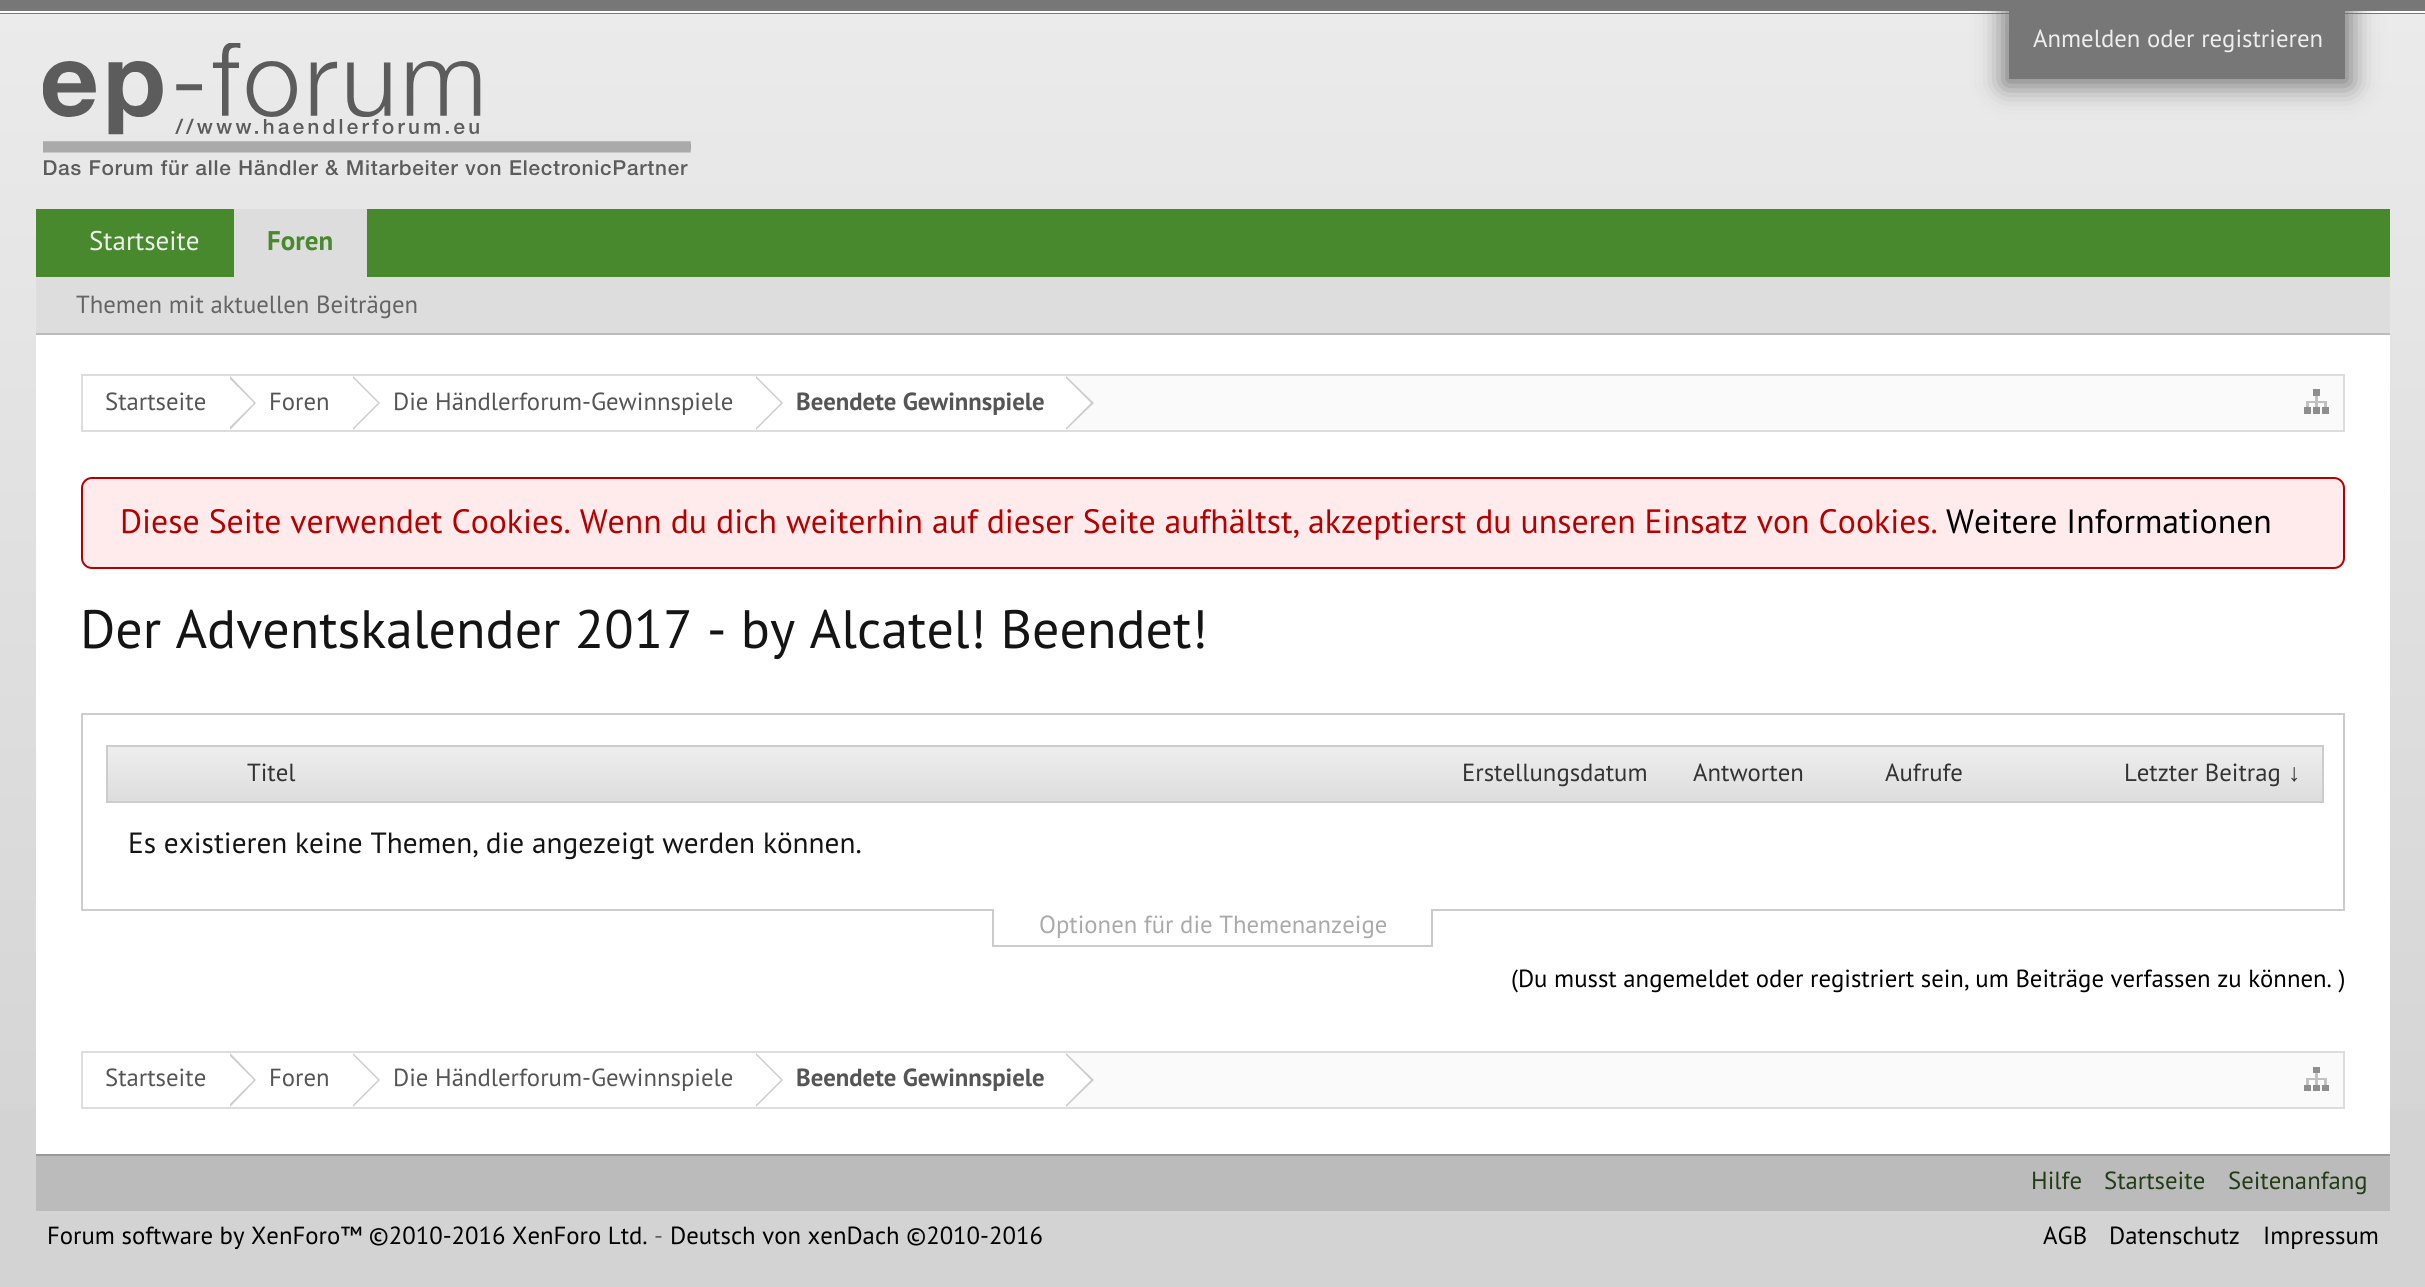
import math
import cairo

surface = cairo.ImageSurface(cairo.FORMAT_RGB24, 2425, 1287)
cr = cairo.Context(surface)
options = cairo.FontOptions()
options.set_hint_metrics(cairo.HINT_METRICS_OFF)
options.set_hint_style(cairo.HINT_STYLE_NONE)
cr.set_font_options(options)
cr.set_miter_limit(4)


def rgb(code):
    cr.set_source_rgb(*(v / 255 for v in bytes.fromhex(code[-6:])))


def rrect(x, y, w, h, r):
    cr.new_sub_path()
    for i, (u, v) in enumerate([(x + w - r, y + h - r), (x + r, y + h - r), (x + r, y + r), (x + w - r, y + r)]):
        cr.arc(u, v, r, i * math.pi / 2, (i + 1) * math.pi / 2)
    cr.close_path()


def soft_shadow(x, y, w, h, r, blur, alpha):
    cr.push_group_with_content(cairo.CONTENT_ALPHA)
    cr.set_operator(cairo.OPERATOR_SOURCE)
    for i in range(15, -16, -2):
        e = blur * i / 6
        if min(w, h) + 2 * e > 0:
            cr.set_source_rgba(0, 0, 0, alpha * math.erfc((i - 1) / 8.5) / 2)
            rrect(x - e, y - e, w + 2 * e, h + 2 * e, max(0, min(r + e + blur * .6, min(w, h) / 2 + e)))
            cr.fill()
    cr.mask(cr.pop_group())


def image(path, x, y, w, h):
    cr.save()
    cr.set_source_surface(cairo.ImageSurface.create_from_png(path), x, y)
    cr.rectangle(x, y, w, h)
    cr.fill()
    cr.restore()


rgb("#d3d3d3")
cr.paint()
gradient = cairo.LinearGradient(1213, 0, 1213, 1238)
gradient.add_color_stop_rgba(0, 0.922, 0.922, 0.922, 1)
gradient.add_color_stop_rgba(1, 0.827, 0.827, 0.827, 1)
cr.set_source(gradient)
cr.rectangle(0, 14, 2425, 1095)
cr.fill()
rgb("#777777")
cr.rectangle(0, 0, 2425, 14)
cr.fill()
rgb("#ffffff")
cr.rectangle(0, 11, 2425, 2)
cr.fill()
rgb("#777777")
soft_shadow(2003, 5, 348, 81, 0, 13.5, 1)
rgb("#777777")
cr.rectangle(2009, 11, 336, 68)
cr.fill()
image("img/1.png", 43, 43, 648, 133)
for x, y, w, h, color in [
    (36, 209, 2354, 68, "#47892c"),
    (234, 209, 133, 68, "#dddddd"),
    (36, 277, 2354, 56, "#dddddd"),
    (36, 333, 2354, 2, "#bbbbbb"),
    (36, 335, 2354, 819, "#ffffff"),
    (1067, 376, 1276, 54, "#fafafa"),
]:
    rgb(color)
    cr.rectangle(x, y, w, h)
    cr.fill()
cr.rectangle(82, 375, 2262, 56)
rgb("#dddddd")
cr.stroke()
rgb("#cccccc")
cr.new_path()
cr.move_to(230, 430)
cr.line_to(230, 376)
cr.line_to(256, 403)
cr.close_path()
cr.fill()
rgb("#ffffff")
cr.new_path()
cr.move_to(227, 430)
cr.line_to(227, 376)
cr.line_to(254, 403)
cr.close_path()
cr.fill()
rgb("#cccccc")
cr.new_path()
cr.move_to(353, 430)
cr.line_to(353, 376)
cr.line_to(380, 403)
cr.close_path()
cr.fill()
rgb("#ffffff")
cr.new_path()
cr.move_to(351, 430)
cr.line_to(351, 376)
cr.line_to(378, 403)
cr.close_path()
cr.fill()
rgb("#cccccc")
cr.new_path()
cr.move_to(756, 430)
cr.line_to(756, 376)
cr.line_to(783, 403)
cr.close_path()
cr.fill()
rgb("#ffffff")
cr.new_path()
cr.move_to(754, 430)
cr.line_to(754, 376)
cr.line_to(781, 403)
cr.close_path()
cr.fill()
rgb("#cccccc")
cr.new_path()
cr.move_to(1066, 430)
cr.line_to(1066, 376)
cr.line_to(1094, 403)
cr.close_path()
cr.fill()
rgb("#ffffff")
cr.new_path()
cr.move_to(1064, 430)
cr.line_to(1064, 376)
cr.line_to(1091, 403)
cr.close_path()
cr.fill()
image("img/2.png", 2304, 389, 25, 25)
rgb("#ffebeb")
rrect(82, 478, 2262, 90, 10)
cr.fill_preserve()
rgb("#b40000")
cr.stroke()
cr.rectangle(82, 714, 2262, 196)
rgb("#cccccc")
cr.stroke()
gradient = cairo.LinearGradient(1215, 801, 1215, 747)
gradient.add_color_stop_rgba(0, 0.867, 0.867, 0.867, 1)
gradient.add_color_stop_rgba(1, 0.933, 0.933, 0.933, 1)
cr.set_source(gradient)
cr.rectangle(108, 747, 2214, 54)
cr.fill()
cr.rectangle(107, 746, 2216, 56)
rgb("#cccccc")
cr.stroke()
for x, y, w, h, color in [
    (994, 909, 437, 2, "#ffffff"),
    (1431, 909, 2, 38, "#cccccc"),
    (992, 945, 441, 2, "#cccccc"),
    (992, 909, 2, 38, "#cccccc"),
    (1067, 1053, 1276, 54, "#fafafa"),
]:
    rgb(color)
    cr.rectangle(x, y, w, h)
    cr.fill()
cr.rectangle(82, 1052, 2262, 56)
rgb("#dddddd")
cr.stroke()
rgb("#cccccc")
cr.new_path()
cr.move_to(230, 1107)
cr.line_to(230, 1053)
cr.line_to(256, 1080)
cr.close_path()
cr.fill()
rgb("#ffffff")
cr.new_path()
cr.move_to(227, 1107)
cr.line_to(227, 1053)
cr.line_to(254, 1080)
cr.close_path()
cr.fill()
rgb("#cccccc")
cr.new_path()
cr.move_to(353, 1107)
cr.line_to(353, 1053)
cr.line_to(380, 1080)
cr.close_path()
cr.fill()
rgb("#ffffff")
cr.new_path()
cr.move_to(351, 1107)
cr.line_to(351, 1053)
cr.line_to(378, 1080)
cr.close_path()
cr.fill()
rgb("#cccccc")
cr.new_path()
cr.move_to(756, 1107)
cr.line_to(756, 1053)
cr.line_to(783, 1080)
cr.close_path()
cr.fill()
rgb("#ffffff")
cr.new_path()
cr.move_to(754, 1107)
cr.line_to(754, 1053)
cr.line_to(781, 1080)
cr.close_path()
cr.fill()
rgb("#cccccc")
cr.new_path()
cr.move_to(1066, 1107)
cr.line_to(1066, 1053)
cr.line_to(1094, 1080)
cr.close_path()
cr.fill()
rgb("#ffffff")
cr.new_path()
cr.move_to(1064, 1107)
cr.line_to(1064, 1053)
cr.line_to(1091, 1080)
cr.close_path()
cr.fill()
image("img/3.png", 2304, 1067, 25, 24)
rgb("#bbbbbb")
cr.rectangle(36, 1156, 2354, 55)
cr.fill()
rgb("#999999")
cr.rectangle(36, 1154, 2354, 2)
cr.fill()
cr.select_font_face("PT Sans")
cr.set_font_size(24.75)
rgb("#eeeeee")
cr.move_to(2033, 47)
cr.show_text("Anmelden oder registrieren")
cr.set_font_size(27)
cr.move_to(89, 250)
cr.show_text("Startseite")
cr.select_font_face("PT Sans", cairo.FONT_SLANT_NORMAL, cairo.FONT_WEIGHT_BOLD)
rgb("#47892c")
cr.move_to(267, 250)
cr.show_text("Foren")
cr.select_font_face("PT Sans")
cr.set_font_size(24.75)
rgb("#646464")
cr.move_to(76, 313)
cr.show_text("Themen mit aktuellen Beiträgen")
rgb("#555555")
for x, y, s in [
    (105, 410, "Startseite"),
    (269, 410, "Foren"),
    (393, 410, "Die Händlerforum-Gewinnspiele"),
]:
    cr.move_to(x, y)
    cr.show_text(s)
cr.save()
cr.rectangle(797, 376, 247, 54)
cr.clip()
cr.select_font_face("PT Sans", cairo.FONT_SLANT_NORMAL, cairo.FONT_WEIGHT_BOLD)
cr.move_to(796, 410)
cr.show_text("Beendete Gewinnspiele")
cr.restore()
cr.set_font_size(33.75)
rgb("#b40000")
cr.move_to(120, 533)
cr.show_text("Diese Seite verwendet Cookies. Wenn du dich weiterhin auf dieser Seite aufhältst, akzeptierst du unseren Einsatz von Cookies.")
rgb("#000000")
cr.move_to(1946, 533)
cr.show_text("Weitere Informationen")
cr.set_font_size(54)
rgb("#141414")
cr.move_to(80, 648)
cr.show_text("Der Adventskalender 2017 - by Alcatel! Beendet!")
cr.set_font_size(24.75)
rgb("#333333")
for x, y, s in [
    (247, 781, "Titel"),
    (1462, 781, "Erstellungsdatum"),
    (1693, 781, "Antworten"),
    (1885, 781, "Aufrufe"),
    (2124, 781, "Letzter Beitrag"),
]:
    cr.move_to(x, y)
    cr.show_text(s)
cr.select_font_face("Liberation Sans")
cr.move_to(2288, 781)
cr.show_text("↓")
cr.select_font_face("PT Sans")
cr.set_font_size(29.25)
rgb("#141414")
cr.move_to(128, 853)
cr.show_text("Es existieren keine Themen, die angezeigt werden können.")
cr.set_font_size(24.75)
rgb("#aaaaaa")
cr.move_to(1039, 933)
cr.show_text("Optionen für die Themenanzeige")
rgb("#000000")
cr.move_to(1511, 987)
cr.show_text("(Du musst angemeldet oder registriert sein, um Beiträge verfassen zu können. )")
rgb("#555555")
for x, y, s in [
    (105, 1086, "Startseite"),
    (269, 1086, "Foren"),
    (393, 1086, "Die Händlerforum-Gewinnspiele"),
]:
    cr.move_to(x, y)
    cr.show_text(s)
cr.save()
cr.rectangle(797, 1053, 247, 54)
cr.clip()
cr.select_font_face("PT Sans", cairo.FONT_SLANT_NORMAL, cairo.FONT_WEIGHT_BOLD)
cr.move_to(796, 1086)
cr.show_text("Beendete Gewinnspiele")
cr.restore()
rgb("#213d15")
for x, y, s in [
    (2031, 1189, "Hilfe"),
    (2104, 1189, "Startseite"),
    (2228, 1189, "Seitenanfang"),
]:
    cr.move_to(x, y)
    cr.show_text(s)
rgb("#000000")
cr.move_to(47, 1244)
cr.show_text("Forum software by XenForo™ ©2010-2016 XenForo Ltd.")
rgb("#646464")
cr.move_to(654, 1244)
cr.show_text("-")
rgb("#000000")
for x, y, s in [
    (670, 1244, "Deutsch von xenDach ©2010-2016"),
    (2043, 1244, "AGB"),
    (2109, 1244, "Datenschutz"),
    (2263, 1244, "Impressum"),
]:
    cr.move_to(x, y)
    cr.show_text(s)
surface.write_to_png("page.png")
